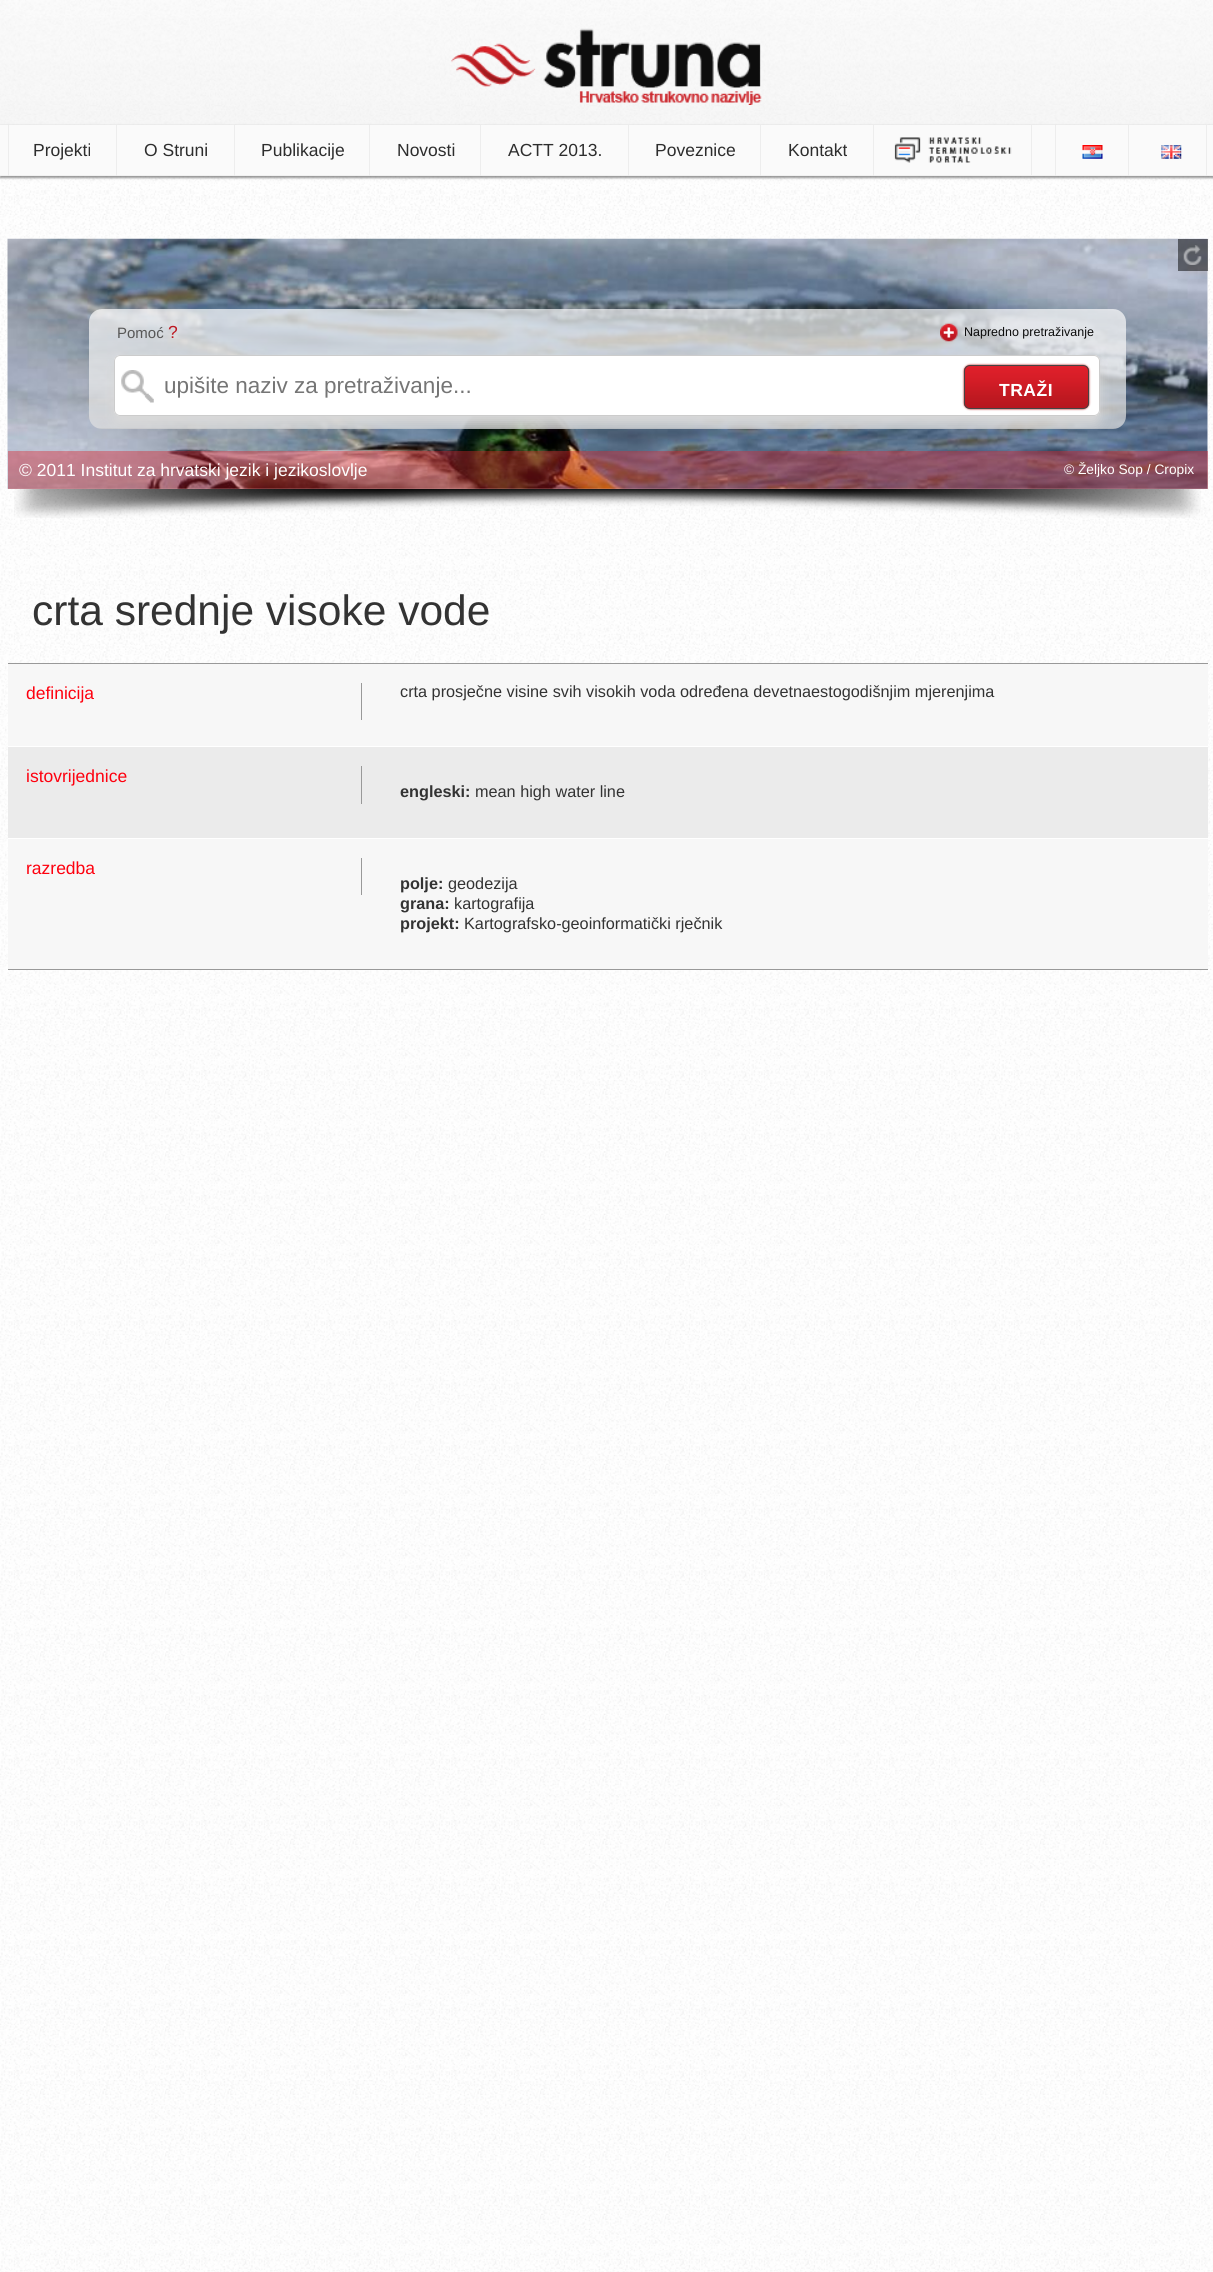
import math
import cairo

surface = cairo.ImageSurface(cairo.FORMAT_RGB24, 1213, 2272)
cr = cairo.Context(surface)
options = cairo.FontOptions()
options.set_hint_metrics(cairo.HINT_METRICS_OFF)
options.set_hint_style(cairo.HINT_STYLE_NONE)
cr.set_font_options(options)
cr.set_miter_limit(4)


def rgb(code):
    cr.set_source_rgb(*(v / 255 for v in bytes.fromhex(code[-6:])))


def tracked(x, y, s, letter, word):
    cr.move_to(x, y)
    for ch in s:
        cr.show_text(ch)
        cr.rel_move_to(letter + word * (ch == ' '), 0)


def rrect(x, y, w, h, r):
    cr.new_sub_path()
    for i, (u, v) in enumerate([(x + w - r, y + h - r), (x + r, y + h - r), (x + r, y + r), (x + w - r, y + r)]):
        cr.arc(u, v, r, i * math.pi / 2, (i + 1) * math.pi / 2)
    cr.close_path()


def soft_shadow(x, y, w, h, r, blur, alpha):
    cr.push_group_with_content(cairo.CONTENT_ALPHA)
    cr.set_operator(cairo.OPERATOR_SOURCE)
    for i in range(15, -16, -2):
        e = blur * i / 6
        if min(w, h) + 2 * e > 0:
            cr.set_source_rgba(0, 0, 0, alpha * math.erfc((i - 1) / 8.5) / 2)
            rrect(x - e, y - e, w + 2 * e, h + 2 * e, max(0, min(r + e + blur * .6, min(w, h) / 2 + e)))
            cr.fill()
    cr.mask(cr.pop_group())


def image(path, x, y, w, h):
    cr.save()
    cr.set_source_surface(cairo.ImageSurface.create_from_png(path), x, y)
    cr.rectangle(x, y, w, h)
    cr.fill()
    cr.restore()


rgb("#ffffff")
cr.paint()
image("img/1.png", 0, 176, 1213, 2096)
image("img/2.png", 0, 0, 1213, 125)
image("img/3.png", 451, 28, 311, 77)
rgb("#000000")
soft_shadow(0, 126, 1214, 52, 0, 1, 0.4)
for x, y, w, h, color in [
    (0, 125, 1213, 50, "#fafafa"),
    (0, 175, 1213, 1, "#f1f1f1"),
    (116, 125, 1, 51, "#ededed"),
    (8, 125, 1, 51, "#ededed"),
    (234, 125, 1, 51, "#ededed"),
    (369, 125, 1, 51, "#ededed"),
    (480, 125, 1, 51, "#ededed"),
    (628, 125, 1, 51, "#ededed"),
    (760, 125, 1, 51, "#ededed"),
    (873, 125, 1, 51, "#ededed"),
    (1031, 125, 1, 50, "#ededed"),
]:
    rgb(color)
    cr.rectangle(x, y, w, h)
    cr.fill()
image("img/4.png", 894, 137, 118, 26)
cr.rectangle(1055, 125, 1, 51)
cr.fill()
cr.rectangle(1128, 125, 1, 51)
cr.fill()
image("img/5.png", 1082, 145, 21, 14)
cr.rectangle(1206, 125, 1, 51)
cr.fill()
image("img/6.png", 1161, 145, 21, 14)
rgb("#ffffff")
cr.rectangle(8, 239, 1200, 250)
cr.fill()
image("img/7.png", 7, 238, 1201, 251)
cr.set_source_rgba(0, 0, 0, 0.5)
cr.rectangle(1178, 239, 30, 32)
cr.fill()
image("img/8.png", 1183, 245, 19, 20)
image("img/9.png", 940, 323, 18, 19)
cr.save()
rrect(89, 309, 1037, 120, 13)
cr.clip()
rgb("#d9d9d9")
soft_shadow(114, 363, 986, 61, 6, 6, 1)
cr.restore()
rgb("#ffffff")
rrect(114, 355, 986, 61, 6)
cr.fill()
image("img/10.png", 121, 370, 33, 33)
rrect(114.5, 355.5, 985, 60, 5.5)
rgb("#cccccc")
cr.set_line_width(1)
cr.stroke()
rgb("#a90707")
soft_shadow(964, 365, 125, 44, 6, 1, 1)
cr.save()
rrect(964, 365, 125, 44, 6)
cr.clip()
gradient = cairo.LinearGradient(1026, 366, 1026, 408)
gradient.add_color_stop_rgba(0, 0.878, 0.125, 0.169, 1)
gradient.add_color_stop_rgba(0.33, 0.835, 0.114, 0.153, 1)
gradient.add_color_stop_rgba(0.73, 0.753, 0.098, 0.129, 1)
gradient.add_color_stop_rgba(1, 0.714, 0.086, 0.125, 1)
cr.set_source(gradient)
cr.rectangle(964, 366, 125, 42)
cr.fill()
cr.restore()
rrect(964.5, 365.5, 124, 43, 5.5)
rgb("#444444")
cr.stroke()
gradient = cairo.LinearGradient(608, 451, 608, 489)
gradient.add_color_stop_rgba(0, 0.878, 0.125, 0.169, 0.4)
gradient.add_color_stop_rgba(0.35, 0.835, 0.114, 0.153, 0.4)
gradient.add_color_stop_rgba(0.88, 0.725, 0.094, 0.125, 0.4)
gradient.add_color_stop_rgba(0.92, 0.729, 0.086, 0.122, 0.4)
gradient.add_color_stop_rgba(1, 0.718, 0.09, 0.129, 0.4)
cr.set_source(gradient)
cr.rectangle(8, 451, 1200, 38)
cr.fill()
image("img/11.png", 14, 489, 1187, 29)
for x, y, w, h, color in [
    (8, 663, 1200, 1, "#999999"),
    (8, 969, 1200, 1, "#999999"),
    (8, 664, 1200, 82, "#f7f7f7"),
    (361, 683, 1, 37, "#999999"),
    (8, 747, 1200, 91, "#ebebeb"),
    (8, 746, 1200, 1, "#ffffff"),
    (361, 766, 1, 38, "#999999"),
    (8, 839, 1200, 130, "#f7f7f7"),
    (8, 838, 1200, 1, "#ffffff"),
    (361, 858, 1, 37, "#999999"),
]:
    rgb(color)
    cr.rectangle(x, y, w, h)
    cr.fill()
cr.select_font_face("Liberation Sans")
cr.set_font_size(17.5)
rgb("#2d2d2d")
for x, y, s in [
    (33, 156, "Projekti"),
    (144, 156, "O Struni"),
    (261, 156, "Publikacije"),
    (397, 156, "Novosti"),
    (508, 156, "ACTT 2013."),
    (655, 156, "Poveznice"),
    (788, 156, "Kontakt"),
]:
    cr.move_to(x, y)
    cr.show_text(s)
cr.set_font_size(15)
rgb("#575757")
cr.move_to(117, 338)
cr.show_text("Pomoć")
cr.set_font_size(17.5)
rgb("#bd1821")
cr.move_to(168, 338)
cr.show_text("?")
cr.set_font_size(12.5)
rgb("#0b0b0b")
cr.move_to(964, 336)
cr.show_text("Napredno pretraživanje")
cr.set_font_size(22.5)
rgb("#757575")
cr.move_to(164, 393)
cr.show_text("upišite naziv za pretraživanje...")
cr.select_font_face("Liberation Sans", cairo.FONT_SLANT_NORMAL, cairo.FONT_WEIGHT_BOLD)
cr.set_font_size(17.5)
rgb("#ffffff")
tracked(999, 396, "TRAŽI", 0.5, 0)
cr.select_font_face("Liberation Sans")
cr.move_to(19, 476)
cr.show_text("© 2011 Institut za hrvatski jezik i jezikoslovlje")
cr.set_font_size(13.75)
cr.move_to(1064, 474)
cr.show_text("© Željko Sop / Cropix")
cr.set_font_size(42.5)
rgb("#333333")
cr.move_to(32, 625)
cr.show_text("crta srednje visoke vode")
cr.set_font_size(17.5)
rgb("#fe000e")
cr.move_to(26, 699)
cr.show_text("definicija")
cr.set_font_size(16.25)
rgb("#333333")
cr.move_to(400, 697)
cr.show_text("crta prosječne visine svih visokih voda određena devetnaestogodišnjim mjerenjima")
cr.set_font_size(17.5)
rgb("#fe000e")
cr.move_to(26, 782)
cr.show_text("istovrijednice")
cr.select_font_face("Liberation Sans", cairo.FONT_SLANT_NORMAL, cairo.FONT_WEIGHT_BOLD)
cr.set_font_size(16.25)
rgb("#333333")
cr.move_to(400, 797)
cr.show_text("engleski:")
cr.select_font_face("Liberation Sans")
cr.move_to(475, 797)
cr.show_text("mean high water line")
cr.set_font_size(17.5)
rgb("#fe000e")
cr.move_to(26, 874)
cr.show_text("razredba")
cr.select_font_face("Liberation Sans", cairo.FONT_SLANT_NORMAL, cairo.FONT_WEIGHT_BOLD)
cr.set_font_size(16.25)
rgb("#333333")
cr.move_to(400, 889)
cr.show_text("polje:")
cr.select_font_face("Liberation Sans")
cr.move_to(448, 889)
cr.show_text("geodezija")
cr.select_font_face("Liberation Sans", cairo.FONT_SLANT_NORMAL, cairo.FONT_WEIGHT_BOLD)
cr.move_to(400, 909)
cr.show_text("grana:")
cr.select_font_face("Liberation Sans")
cr.move_to(454, 909)
cr.show_text("kartografija")
cr.select_font_face("Liberation Sans", cairo.FONT_SLANT_NORMAL, cairo.FONT_WEIGHT_BOLD)
cr.move_to(400, 929)
cr.show_text("projekt:")
cr.select_font_face("Liberation Sans")
cr.move_to(464, 929)
cr.show_text("Kartografsko-geoinformatički rječnik")
surface.write_to_png("page.png")
